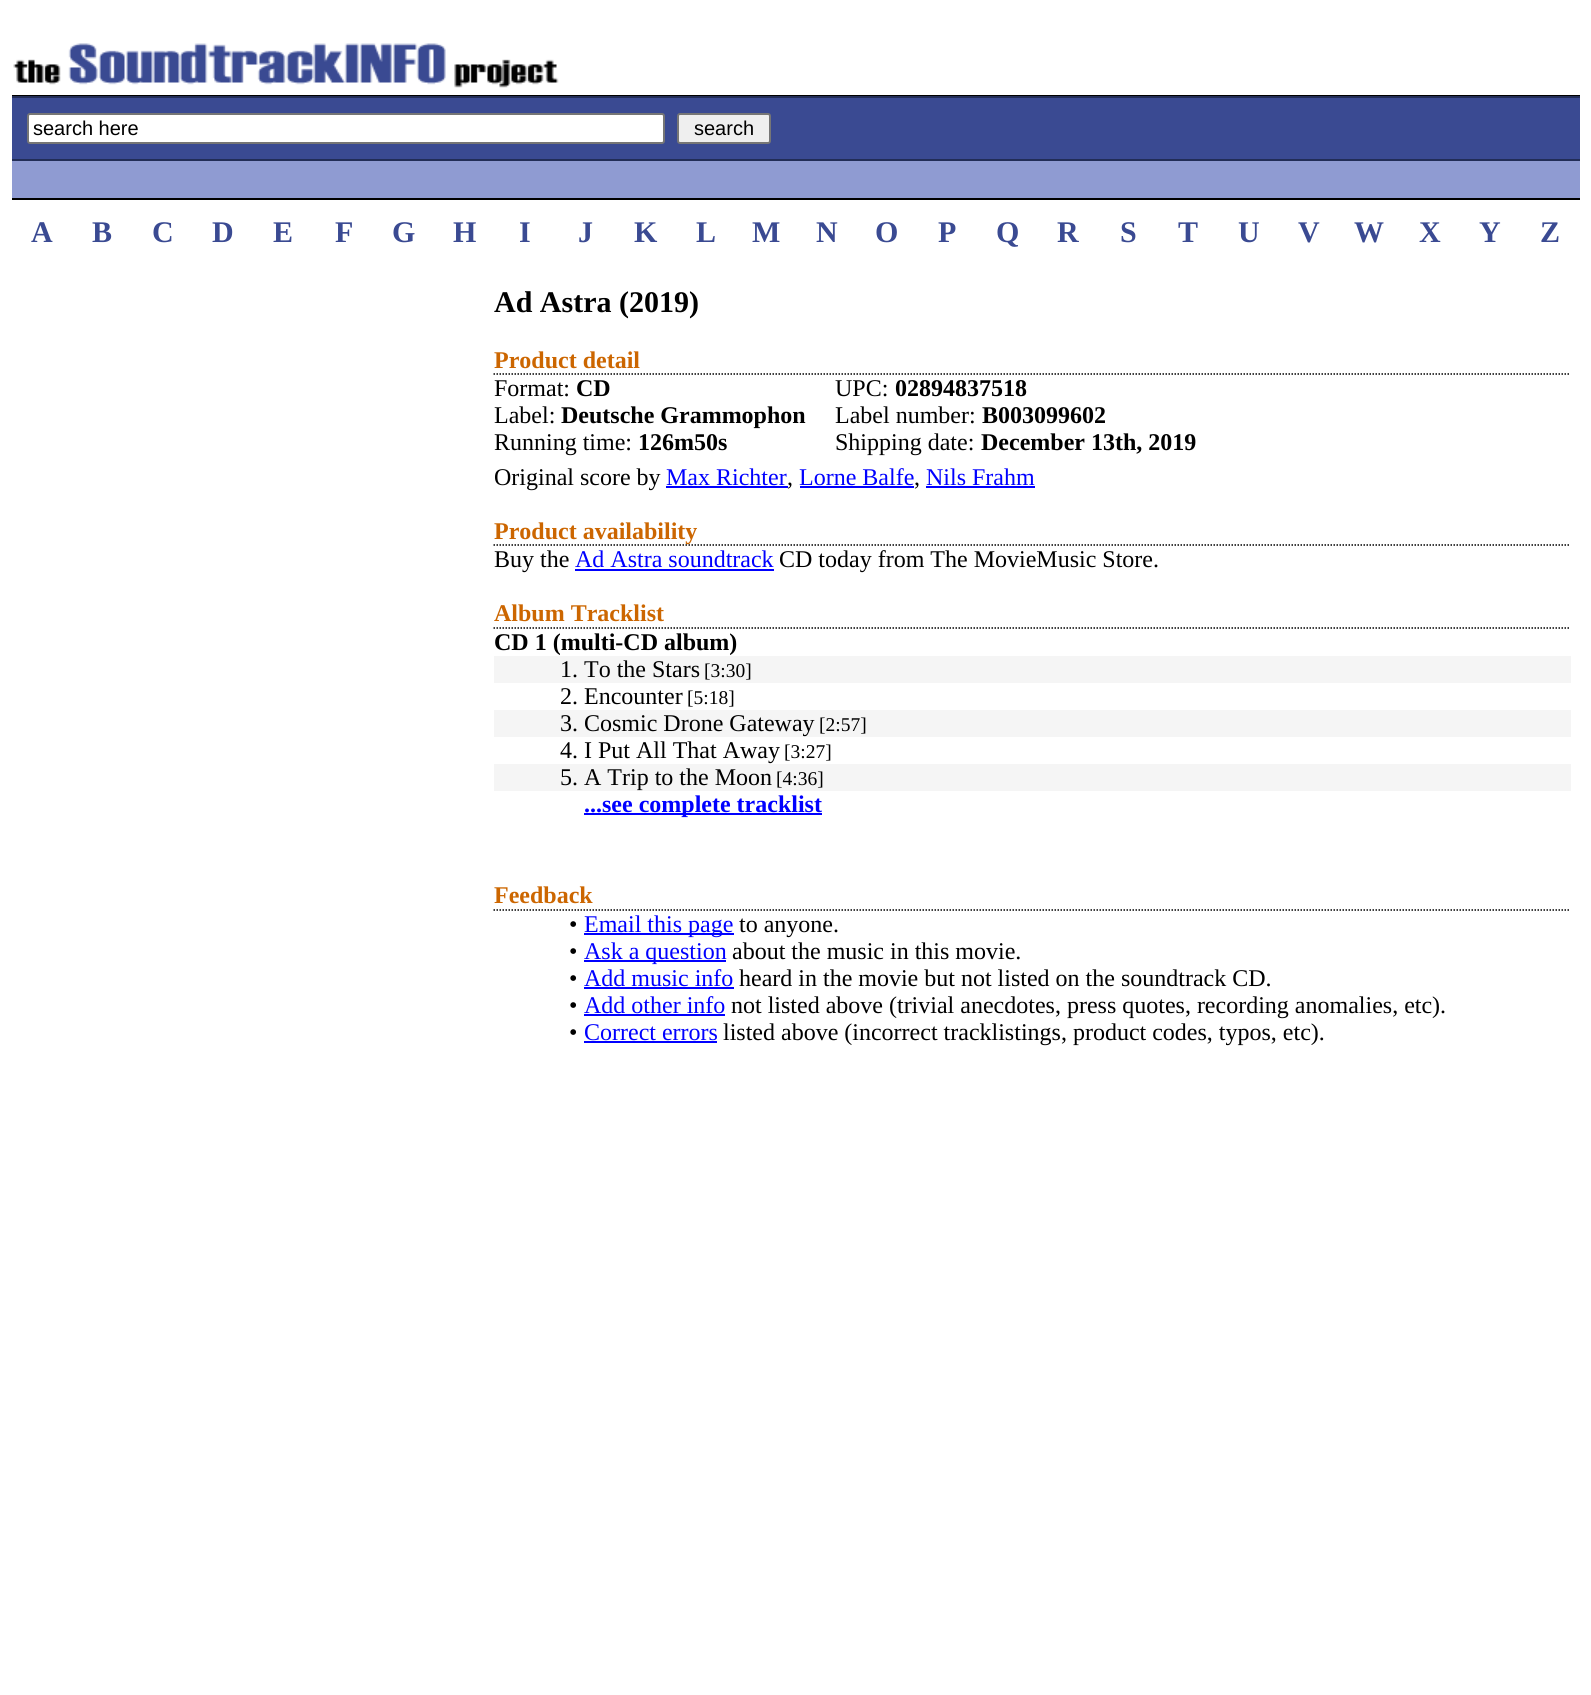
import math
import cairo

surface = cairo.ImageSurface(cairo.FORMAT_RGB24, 1591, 1695)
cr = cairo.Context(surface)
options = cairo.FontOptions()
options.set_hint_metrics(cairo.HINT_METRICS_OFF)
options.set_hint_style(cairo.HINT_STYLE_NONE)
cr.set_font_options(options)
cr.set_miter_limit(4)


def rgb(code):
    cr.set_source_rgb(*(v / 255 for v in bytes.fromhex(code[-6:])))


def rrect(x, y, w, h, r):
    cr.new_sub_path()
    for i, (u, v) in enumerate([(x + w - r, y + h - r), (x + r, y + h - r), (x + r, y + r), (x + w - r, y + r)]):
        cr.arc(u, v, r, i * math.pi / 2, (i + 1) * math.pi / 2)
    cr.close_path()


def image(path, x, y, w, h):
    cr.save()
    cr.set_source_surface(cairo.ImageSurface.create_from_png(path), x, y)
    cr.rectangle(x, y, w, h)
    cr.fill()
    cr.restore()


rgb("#ffffff")
cr.paint()
rgb("#000000")
cr.rectangle(12, 95, 1568, 1)
cr.fill()
image("img/1.png", 13, 43, 546, 45)
for x, y, w, h, color in [
    (12, 98, 1568, 61, "#3a4a92"),
    (12, 96, 1568, 2, "#222d57"),
    (12, 159, 1568, 2, "#222d57"),
]:
    rgb(color)
    cr.rectangle(x, y, w, h)
    cr.fill()
rgb("#ffffff")
rrect(28, 114, 636, 29, 2)
cr.fill_preserve()
rgb("#767676")
cr.stroke()
rgb("#efefef")
rrect(678, 114, 92, 29, 2)
cr.fill_preserve()
rgb("#767676")
cr.stroke()
rgb("#8f9bd2")
cr.rectangle(12, 161, 1568, 37)
cr.fill()
rgb("#000000")
cr.rectangle(12, 198, 1568, 2)
cr.fill()
cr.new_path()
cr.move_to(493.5, 374)
cr.line_to(1570.5, 374)
cr.set_line_width(1.5)
cr.set_dash([1.5, 1.5])
cr.stroke()
for x, y, w, h, color in [
    (666, 486, 122, 2, "#0000ff"),
    (800, 486, 114, 2, "#0000ff"),
    (926, 486, 109, 2, "#0000ff"),
]:
    rgb(color)
    cr.rectangle(x, y, w, h)
    cr.fill()
cr.new_path()
cr.move_to(493.5, 545)
cr.line_to(1570.5, 545)
rgb("#000000")
cr.stroke()
rgb("#0000ff")
cr.rectangle(575, 569, 199, 2)
cr.fill()
cr.new_path()
cr.move_to(493.5, 628)
cr.line_to(1570.5, 628)
rgb("#000000")
cr.stroke()
for x, y, w, h, color in [
    (494, 656, 1077, 27, "#f5f5f5"),
    (494, 710, 1077, 27, "#f5f5f5"),
    (494, 764, 1077, 27, "#f5f5f5"),
    (584, 813, 238, 2, "#0000ff"),
]:
    rgb(color)
    cr.rectangle(x, y, w, h)
    cr.fill()
cr.new_path()
cr.move_to(493.5, 910)
cr.line_to(1570.5, 910)
rgb("#000000")
cr.stroke()
for x, y, w, h, color in [
    (584, 933, 150, 2, "#0000ff"),
    (584, 960, 142, 2, "#0000ff"),
    (584, 987, 150, 2, "#0000ff"),
    (584, 1014, 141, 2, "#0000ff"),
    (584, 1041, 133, 2, "#0000ff"),
]:
    rgb(color)
    cr.rectangle(x, y, w, h)
    cr.fill()
cr.select_font_face("Liberation Sans")
cr.set_font_size(20)
rgb("#000000")
cr.move_to(33, 135)
cr.show_text("search here")
cr.move_to(694, 135)
cr.show_text("search")
cr.select_font_face("Liberation Serif", cairo.FONT_SLANT_NORMAL, cairo.FONT_WEIGHT_BOLD)
cr.set_font_size(30)
rgb("#3a4a92")
for x, y, s in [
    (31, 242, "A"),
    (92, 242, "B"),
    (152, 242, "C"),
    (212, 242, "D"),
    (273, 242, "E"),
    (335, 242, "F"),
    (392, 242, "G"),
    (453, 242, "H"),
    (519, 242, "I"),
    (578, 242, "J"),
    (634, 242, "K"),
    (696, 242, "L"),
    (752, 242, "M"),
    (816, 242, "N"),
    (875, 242, "O"),
    (938, 242, "P"),
    (996, 242, "Q"),
    (1057, 242, "R"),
    (1120, 242, "S"),
    (1178, 242, "T"),
    (1238, 242, "U"),
    (1298, 242, "V"),
    (1354, 242, "W"),
    (1419, 242, "X"),
    (1479, 242, "Y"),
    (1540, 242, "Z"),
]:
    cr.move_to(x, y)
    cr.show_text(s)
rgb("#000000")
cr.move_to(494, 312)
cr.show_text("Ad Astra (2019)")
cr.set_font_size(24)
rgb("#cc6600")
cr.move_to(494, 368)
cr.show_text("Product detail")
cr.select_font_face("Liberation Serif")
rgb("#000000")
cr.move_to(494, 396)
cr.show_text("Format:")
cr.select_font_face("Liberation Serif", cairo.FONT_SLANT_NORMAL, cairo.FONT_WEIGHT_BOLD)
cr.move_to(576, 396)
cr.show_text("CD")
cr.select_font_face("Liberation Serif")
cr.move_to(835, 396)
cr.show_text("UPC:")
cr.select_font_face("Liberation Serif", cairo.FONT_SLANT_NORMAL, cairo.FONT_WEIGHT_BOLD)
cr.move_to(895, 396)
cr.show_text("02894837518")
cr.select_font_face("Liberation Serif")
cr.move_to(494, 423)
cr.show_text("Label:")
cr.select_font_face("Liberation Serif", cairo.FONT_SLANT_NORMAL, cairo.FONT_WEIGHT_BOLD)
cr.move_to(561, 423)
cr.show_text("Deutsche Grammophon")
cr.select_font_face("Liberation Serif")
cr.move_to(835, 423)
cr.show_text("Label number:")
cr.select_font_face("Liberation Serif", cairo.FONT_SLANT_NORMAL, cairo.FONT_WEIGHT_BOLD)
cr.move_to(982, 423)
cr.show_text("B003099602")
cr.select_font_face("Liberation Serif")
cr.move_to(494, 450)
cr.show_text("Running time:")
cr.select_font_face("Liberation Serif", cairo.FONT_SLANT_NORMAL, cairo.FONT_WEIGHT_BOLD)
cr.move_to(638, 450)
cr.show_text("126m50s")
cr.select_font_face("Liberation Serif")
cr.move_to(835, 450)
cr.show_text("Shipping date:")
cr.select_font_face("Liberation Serif", cairo.FONT_SLANT_NORMAL, cairo.FONT_WEIGHT_BOLD)
cr.move_to(981, 450)
cr.show_text("December 13th, 2019")
cr.select_font_face("Liberation Serif")
cr.move_to(494, 485)
cr.show_text("Original score by")
rgb("#0000ff")
cr.move_to(666, 485)
cr.show_text("Max Richter")
rgb("#000000")
cr.move_to(787, 485)
cr.show_text(",")
rgb("#0000ff")
cr.move_to(799, 485)
cr.show_text("Lorne Balfe")
rgb("#000000")
cr.move_to(914, 485)
cr.show_text(",")
rgb("#0000ff")
cr.move_to(926, 485)
cr.show_text("Nils Frahm")
cr.select_font_face("Liberation Serif", cairo.FONT_SLANT_NORMAL, cairo.FONT_WEIGHT_BOLD)
rgb("#cc6600")
cr.move_to(494, 539)
cr.show_text("Product availability")
cr.select_font_face("Liberation Serif")
rgb("#000000")
cr.move_to(494, 567)
cr.show_text("Buy the")
rgb("#0000ff")
cr.move_to(575, 567)
cr.show_text("Ad Astra soundtrack")
rgb("#000000")
cr.move_to(779, 567)
cr.show_text("CD today from The MovieMusic Store.")
cr.select_font_face("Liberation Serif", cairo.FONT_SLANT_NORMAL, cairo.FONT_WEIGHT_BOLD)
rgb("#cc6600")
cr.move_to(494, 621)
cr.show_text("Album Tracklist")
rgb("#000000")
cr.move_to(494, 650)
cr.show_text("CD 1 (multi-CD album)")
cr.select_font_face("Liberation Serif")
cr.move_to(560, 677)
cr.show_text("1. To the Stars")
cr.set_font_size(19.5)
cr.move_to(704, 677)
cr.show_text("[3:30]")
cr.set_font_size(24)
cr.move_to(560, 704)
cr.show_text("2. Encounter")
cr.set_font_size(19.5)
cr.move_to(687, 704)
cr.show_text("[5:18]")
cr.set_font_size(24)
cr.move_to(560, 731)
cr.show_text("3. Cosmic Drone Gateway")
cr.set_font_size(19.5)
cr.move_to(819, 731)
cr.show_text("[2:57]")
cr.set_font_size(24)
cr.move_to(560, 758)
cr.show_text("4. I Put All That Away")
cr.set_font_size(19.5)
cr.move_to(784, 758)
cr.show_text("[3:27]")
cr.set_font_size(24)
cr.move_to(560, 785)
cr.show_text("5. A Trip to the Moon")
cr.set_font_size(19.5)
cr.move_to(776, 785)
cr.show_text("[4:36]")
cr.select_font_face("Liberation Serif", cairo.FONT_SLANT_NORMAL, cairo.FONT_WEIGHT_BOLD)
cr.set_font_size(24)
rgb("#0000ff")
cr.move_to(584, 812)
cr.show_text("...see complete tracklist")
rgb("#cc6600")
cr.move_to(494, 903)
cr.show_text("Feedback")
cr.select_font_face("Liberation Serif")
rgb("#000000")
cr.move_to(569, 932)
cr.show_text("•")
rgb("#0000ff")
cr.move_to(584, 932)
cr.show_text("Email this page")
rgb("#000000")
cr.move_to(739, 932)
cr.show_text("to anyone.")
cr.move_to(569, 959)
cr.show_text("•")
rgb("#0000ff")
cr.move_to(584, 959)
cr.show_text("Ask a question")
rgb("#000000")
cr.move_to(732, 959)
cr.show_text("about the music in this movie.")
cr.move_to(569, 986)
cr.show_text("•")
rgb("#0000ff")
cr.move_to(584, 986)
cr.show_text("Add music info")
rgb("#000000")
cr.move_to(739, 986)
cr.show_text("heard in the movie but not listed on the soundtrack CD.")
cr.move_to(569, 1013)
cr.show_text("•")
rgb("#0000ff")
cr.move_to(584, 1013)
cr.show_text("Add other info")
rgb("#000000")
cr.move_to(731, 1013)
cr.show_text("not listed above (trivial anecdotes, press quotes, recording anomalies, etc).")
cr.move_to(569, 1040)
cr.show_text("•")
rgb("#0000ff")
cr.move_to(584, 1040)
cr.show_text("Correct errors")
rgb("#000000")
cr.move_to(723, 1040)
cr.show_text("listed above (incorrect tracklistings, product codes, typos, etc).")
surface.write_to_png("page.png")
